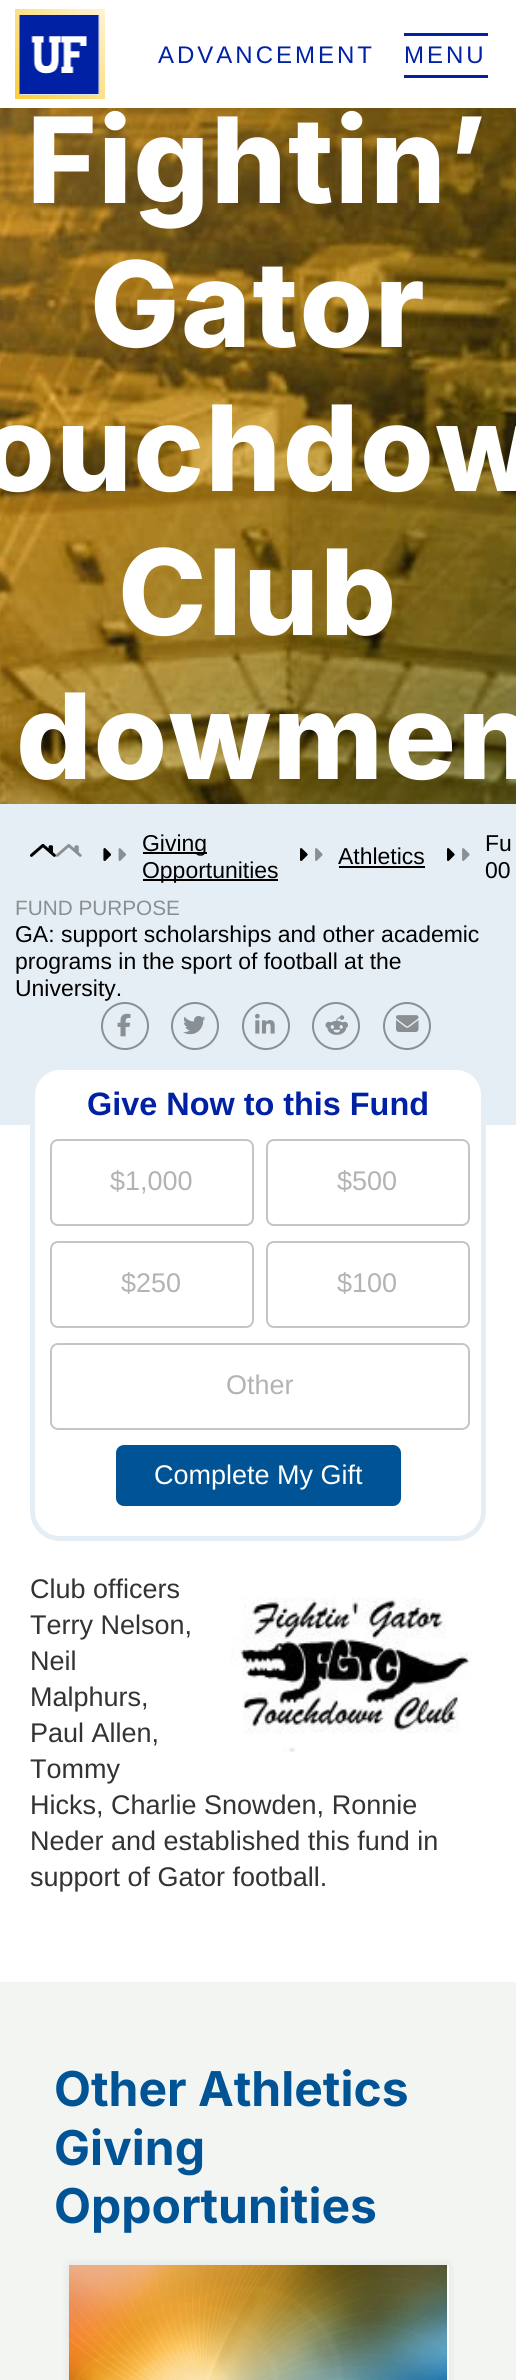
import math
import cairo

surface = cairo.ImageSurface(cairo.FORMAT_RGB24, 516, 2380)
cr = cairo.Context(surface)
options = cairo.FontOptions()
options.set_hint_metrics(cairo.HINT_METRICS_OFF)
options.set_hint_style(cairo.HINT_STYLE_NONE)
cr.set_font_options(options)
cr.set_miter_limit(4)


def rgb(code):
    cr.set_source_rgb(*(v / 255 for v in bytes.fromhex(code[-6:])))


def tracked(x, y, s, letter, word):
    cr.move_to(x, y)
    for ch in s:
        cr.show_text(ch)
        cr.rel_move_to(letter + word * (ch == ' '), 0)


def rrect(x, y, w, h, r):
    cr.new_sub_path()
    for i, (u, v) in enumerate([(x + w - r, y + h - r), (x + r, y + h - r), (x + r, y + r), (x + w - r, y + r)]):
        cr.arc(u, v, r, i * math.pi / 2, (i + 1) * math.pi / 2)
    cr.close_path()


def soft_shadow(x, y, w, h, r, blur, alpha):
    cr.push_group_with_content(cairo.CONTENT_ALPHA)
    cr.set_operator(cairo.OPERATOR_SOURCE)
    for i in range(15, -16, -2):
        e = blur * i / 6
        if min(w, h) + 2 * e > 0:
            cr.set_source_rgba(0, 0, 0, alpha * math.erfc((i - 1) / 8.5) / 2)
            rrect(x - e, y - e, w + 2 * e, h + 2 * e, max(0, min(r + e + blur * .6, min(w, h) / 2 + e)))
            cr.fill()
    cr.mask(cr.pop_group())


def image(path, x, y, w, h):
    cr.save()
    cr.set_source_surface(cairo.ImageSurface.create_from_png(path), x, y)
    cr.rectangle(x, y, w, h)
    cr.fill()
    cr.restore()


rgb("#ffffff")
cr.paint()
image("img/2.png", 0, 108, 516, 696)
rgb("#000000")
soft_shadow(0, 0, 516, 108, 0, 5, 0.08)
rgb("#ffffff")
cr.rectangle(0, 0, 516, 108)
cr.fill()
gradient = cairo.LinearGradient(15, 99, 105, 9)
gradient.add_color_stop_rgba(0, 0.984, 0.804, 0.22, 1)
gradient.add_color_stop_rgba(1, 0.996, 0.957, 0.835, 1)
cr.set_source(gradient)
cr.rectangle(15, 9, 90, 90)
cr.fill()
rgb("#ffffff")
cr.rectangle(20, 15, 79, 80)
cr.fill()
image("img/1.png", 19, 15, 81, 80)
for x, y, w, h, color in [
    (404, 33, 84, 3, "#0021a4"),
    (404, 75, 84, 3, "#0021a4"),
    (0, 804, 516, 321, "#e6eef5"),
]:
    rgb(color)
    cr.rectangle(x, y, w, h)
    cr.fill()
image("img/3.png", 30, 843, 26, 14)
image("img/4.png", 30, 844, 52, 13)
image("img/5.png", 103, 848, 8, 13)
image("img/6.png", 103, 848, 24, 13)
rgb("#000000")
cr.rectangle(143, 852, 64, 2)
cr.fill()
cr.rectangle(143, 879, 135, 2)
cr.fill()
image("img/7.png", 300, 848, 8, 13)
image("img/8.png", 300, 848, 23, 13)
cr.rectangle(339, 866, 86, 2)
cr.fill()
image("img/7.png", 447, 848, 8, 13)
image("img/8.png", 447, 848, 23, 13)
cr.arc(125, 1026, 23, 0, 2 * math.pi)
rgb("#898f92")
cr.stroke()
image("img/9.png", 117, 1013, 14, 24)
cr.arc(195, 1026, 23, 0, 2 * math.pi)
cr.stroke()
image("img/10.png", 183, 1015, 23, 20)
cr.arc(266, 1026, 23, 0, 2 * math.pi)
cr.stroke()
image("img/11.png", 255, 1013, 20, 21)
cr.arc(336, 1026, 23, 0, 2 * math.pi)
cr.stroke()
image("img/12.png", 325, 1015, 23, 20)
cr.arc(407, 1026, 23, 0, 2 * math.pi)
cr.stroke()
image("img/13.png", 396, 1015, 23, 17)
rgb("#ffffff")
rrect(32.5, 1067.5, 451, 471, 27.5)
cr.fill_preserve()
rgb("#e5eef4")
cr.set_line_width(5)
cr.stroke()
rrect(51, 1140, 202, 85, 7)
rgb("#c5c5c5")
cr.set_line_width(2)
cr.stroke()
rrect(267, 1140, 202, 85, 7)
cr.stroke()
rrect(51, 1242, 202, 85, 7)
cr.stroke()
rrect(267, 1242, 202, 85, 7)
cr.stroke()
rrect(51, 1344, 418, 85, 7)
cr.stroke()
rgb("#005496")
rrect(116, 1445, 285, 61, 8)
cr.fill()
image("img/14.png", 230, 1597, 241, 156)
rgb("#f3f5f3")
cr.rectangle(0, 1982, 516, 398)
cr.fill()
rgb("#000000")
soft_shadow(69, 2265, 380, 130, 0, 5, 0.08)
rgb("#ffffff")
cr.rectangle(447, 2265, 2, 115)
cr.fill()
image("img/15.png", 69, 2265, 378, 115)
cr.select_font_face("Liberation Sans")
cr.set_font_size(24)
rgb("#0021a4")
tracked(158, 63, "ADVANCEMENT", 3, 0)
tracked(404, 63, "MENU", 3, 0)
cr.select_font_face("Inter ExtraBold")
cr.set_font_size(119)
rgb("#ffffff")
for x, y, s in [
    (27, 203, "Fightin’"),
    (90, 347, "Gator"),
    (-19, 491, "ouchdow"),
    (118, 635, "Club"),
    (16, 779, "dowmen"),
]:
    tracked(x, y, s, 1.5, 0)
cr.select_font_face("Liberation Sans")
cr.set_font_size(22.95)
rgb("#000000")
for x, y, s in [
    (142, 851, "Giving"),
    (142, 878, "Opportunities"),
    (338, 864, "Athletics"),
    (485, 851, "Fu"),
    (485, 878, "00"),
]:
    cr.move_to(x, y)
    cr.show_text(s)
cr.set_font_size(20.75)
rgb("#898f92")
cr.move_to(15, 915)
cr.show_text("FUND PURPOSE")
cr.set_font_size(22.95)
rgb("#000000")
for x, y, s in [
    (15, 942, "GA: support scholarships and other academic"),
    (15, 969, "programs in the sport of football at the"),
    (15, 996, "University."),
]:
    cr.move_to(x, y)
    cr.show_text(s)
cr.select_font_face("Liberation Sans", cairo.FONT_SLANT_NORMAL, cairo.FONT_WEIGHT_BOLD)
cr.set_font_size(32.4)
rgb("#0021a4")
cr.move_to(87, 1115)
cr.show_text("Give Now to this Fund")
cr.select_font_face("Liberation Sans")
cr.set_font_size(27)
rgb("#b1b3b5")
for x, y, s in [
    (110, 1190, "$1,000"),
    (337, 1190, "$500"),
    (121, 1292, "$250"),
    (337, 1292, "$100"),
    (226, 1394, "Other"),
]:
    cr.move_to(x, y)
    cr.show_text(s)
rgb("#ffffff")
cr.move_to(154, 1484)
cr.show_text("Complete My Gift")
rgb("#333333")
for x, y, s in [
    (30, 1598, "Club officers"),
    (30, 1634, "Terry Nelson,"),
    (30, 1670, "Neil"),
    (30, 1706, "Malphurs,"),
    (30, 1742, "Paul Allen,"),
    (30, 1778, "Tommy"),
    (30, 1814, "Hicks, Charlie Snowden, Ronnie"),
    (30, 1850, "Neder and established this fund in"),
    (30, 1886, "support of Gator football."),
]:
    cr.move_to(x, y)
    cr.show_text(s)
cr.select_font_face("Inter", cairo.FONT_SLANT_NORMAL, cairo.FONT_WEIGHT_BOLD)
cr.set_font_size(48)
rgb("#005496")
for x, y, s in [
    (54, 2106, "Other Athletics"),
    (54, 2165, "Giving"),
    (54, 2223, "Opportunities"),
]:
    cr.move_to(x, y)
    cr.show_text(s)
surface.write_to_png("page.png")
